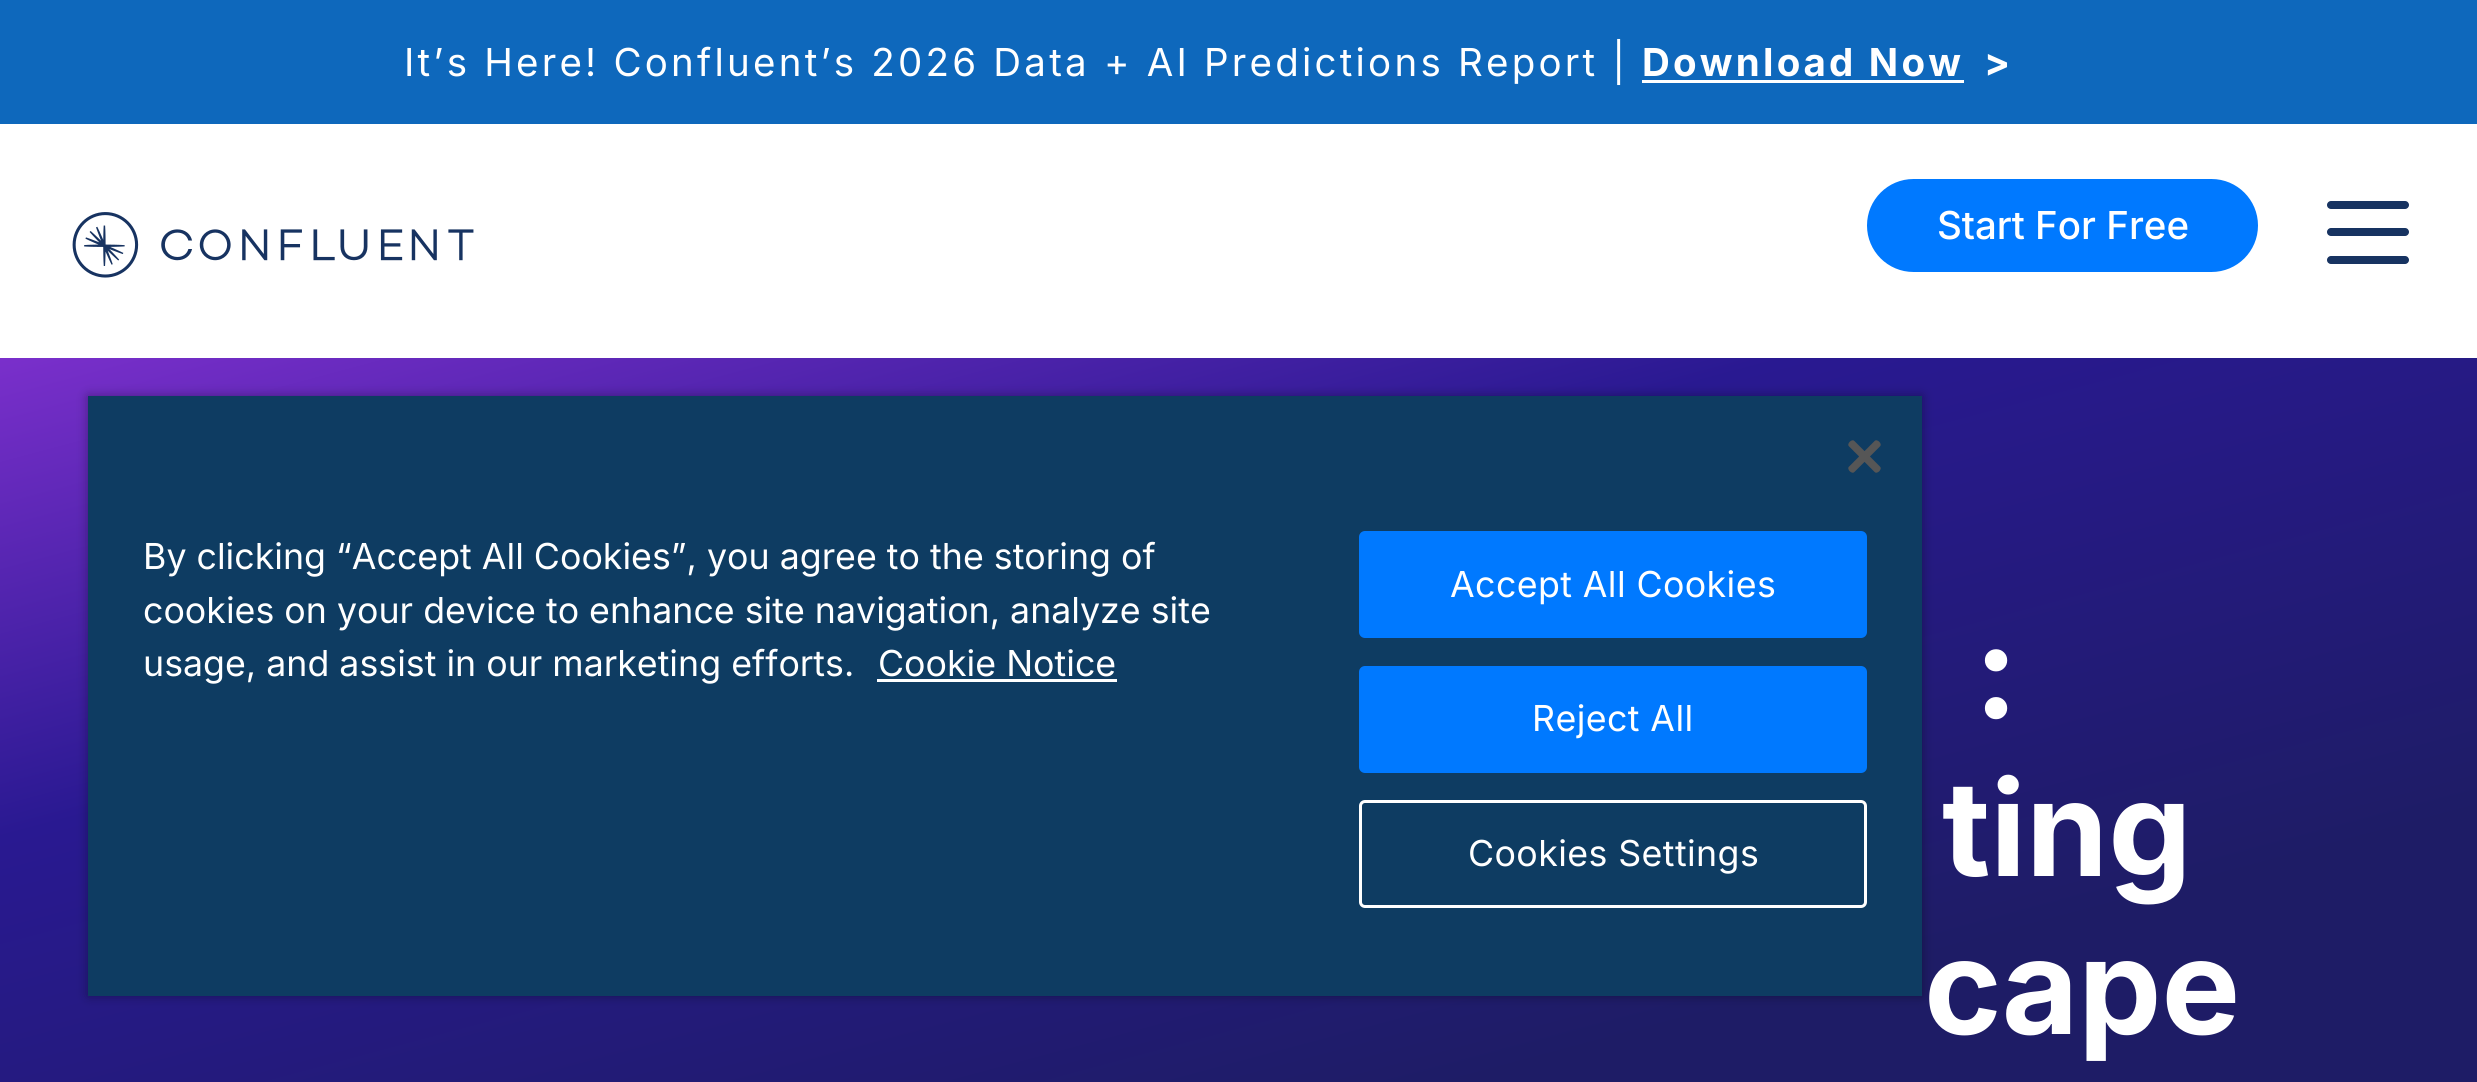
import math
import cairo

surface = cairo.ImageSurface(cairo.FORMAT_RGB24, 2477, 1082)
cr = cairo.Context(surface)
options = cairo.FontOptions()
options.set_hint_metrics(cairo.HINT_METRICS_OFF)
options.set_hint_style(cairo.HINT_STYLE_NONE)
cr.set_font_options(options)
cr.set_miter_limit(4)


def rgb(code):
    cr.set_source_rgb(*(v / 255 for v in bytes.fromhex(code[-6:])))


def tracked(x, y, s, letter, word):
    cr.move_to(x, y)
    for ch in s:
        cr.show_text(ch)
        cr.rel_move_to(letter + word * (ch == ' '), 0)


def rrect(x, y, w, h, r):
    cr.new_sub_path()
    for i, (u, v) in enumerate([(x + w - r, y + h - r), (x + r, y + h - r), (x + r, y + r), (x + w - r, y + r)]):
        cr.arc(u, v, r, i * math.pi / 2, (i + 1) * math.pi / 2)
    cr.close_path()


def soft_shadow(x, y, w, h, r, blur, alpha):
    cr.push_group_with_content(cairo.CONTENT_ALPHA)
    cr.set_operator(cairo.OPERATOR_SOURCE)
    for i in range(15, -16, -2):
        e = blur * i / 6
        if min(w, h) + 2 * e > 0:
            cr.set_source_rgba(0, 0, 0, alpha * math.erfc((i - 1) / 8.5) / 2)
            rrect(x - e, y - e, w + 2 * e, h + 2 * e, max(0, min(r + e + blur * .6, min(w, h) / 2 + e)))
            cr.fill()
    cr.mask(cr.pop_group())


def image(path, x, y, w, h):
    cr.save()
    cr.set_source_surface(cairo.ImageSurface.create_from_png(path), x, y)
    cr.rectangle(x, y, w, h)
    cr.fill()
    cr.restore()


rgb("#ffffff")
cr.paint()
rgb("#0e68bc")
cr.rectangle(0, 0, 2477, 124)
cr.fill()
rgb("#ffffff")
cr.rectangle(1642, 80, 322, 3)
cr.fill()
image("img/1.png", 72, 212, 402, 66)
rgb("#0079ff")
rrect(1868.5, 180.5, 388, 90, 45)
cr.fill_preserve()
cr.set_line_width(3)
cr.stroke()
rgb("#173361")
rrect(2327, 201, 82, 8, 4)
cr.fill()
rrect(2327, 228, 82, 8, 4)
cr.fill()
rrect(2327, 256, 82, 8, 4)
cr.fill()
gradient = cairo.LinearGradient(954, -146, 1523, 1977)
gradient.add_color_stop_rgba(0, 0.643, 0.231, 0.914, 1)
gradient.add_color_stop_rgba(0.32, 0.161, 0.098, 0.569, 1)
gradient.add_color_stop_rgba(0.6, 0.118, 0.11, 0.4, 1)
cr.set_source(gradient)
cr.rectangle(0, 358, 2477, 724)
cr.fill()
rgb("#000000")
soft_shadow(88, 396, 1834, 600, 0, 5.5, 0.35)
rgb("#0e3c62")
cr.rectangle(88, 396, 1834, 600)
cr.fill()
image("img/2.png", 1848, 440, 33, 33)
rgb("#ffffff")
cr.rectangle(877, 679, 240, 3)
cr.fill()
rgb("#0079ff")
rrect(1360.5, 532.5, 505, 104, 4.5)
cr.fill_preserve()
cr.stroke()
rrect(1360.5, 667.5, 505, 104, 4.5)
cr.fill_preserve()
cr.stroke()
rrect(1360.5, 801.5, 505, 105, 4.5)
rgb("#ffffff")
cr.stroke()
cr.select_font_face("Inter")
cr.set_font_size(38.5)
tracked(404, 76, "It’s Here! Confluent’s 2026 Data + AI Predictions Report |", 3.22, 0)
cr.select_font_face("Inter", cairo.FONT_SLANT_NORMAL, cairo.FONT_WEIGHT_BOLD)
tracked(1642, 76, "Download Now", 3.22, 0)
tracked(1984, 76, ">", 3.22, 0)
cr.select_font_face("Inter Medium")
cr.move_to(1937, 239)
cr.show_text("Start For Free")
cr.select_font_face("Inter", cairo.FONT_SLANT_NORMAL, cairo.FONT_WEIGHT_BOLD)
cr.set_font_size(132)
for x, y, s in [
    (1974, 718, ":"),
    (1942, 876, "ting"),
    (1924, 1034, "cape"),
]:
    cr.move_to(x, y)
    cr.show_text(s)
cr.select_font_face("Inter")
cr.set_font_size(35.75)
for x, y, s in [
    (143, 569, "By clicking “Accept All Cookies”, you agree to the storing of"),
    (143, 623, "cookies on your device to enhance site navigation, analyze site"),
    (143, 676, "usage, and assist in our marketing efforts."),
    (878, 676, "Cookie Notice"),
]:
    cr.move_to(x, y)
    cr.show_text(s)
for x, y, s in [
    (1450, 597, "Accept All Cookies"),
    (1532, 731, "Reject All"),
    (1468, 866, "Cookies Settings"),
]:
    tracked(x, y, s, 0.4, 0)
surface.write_to_png("page.png")
